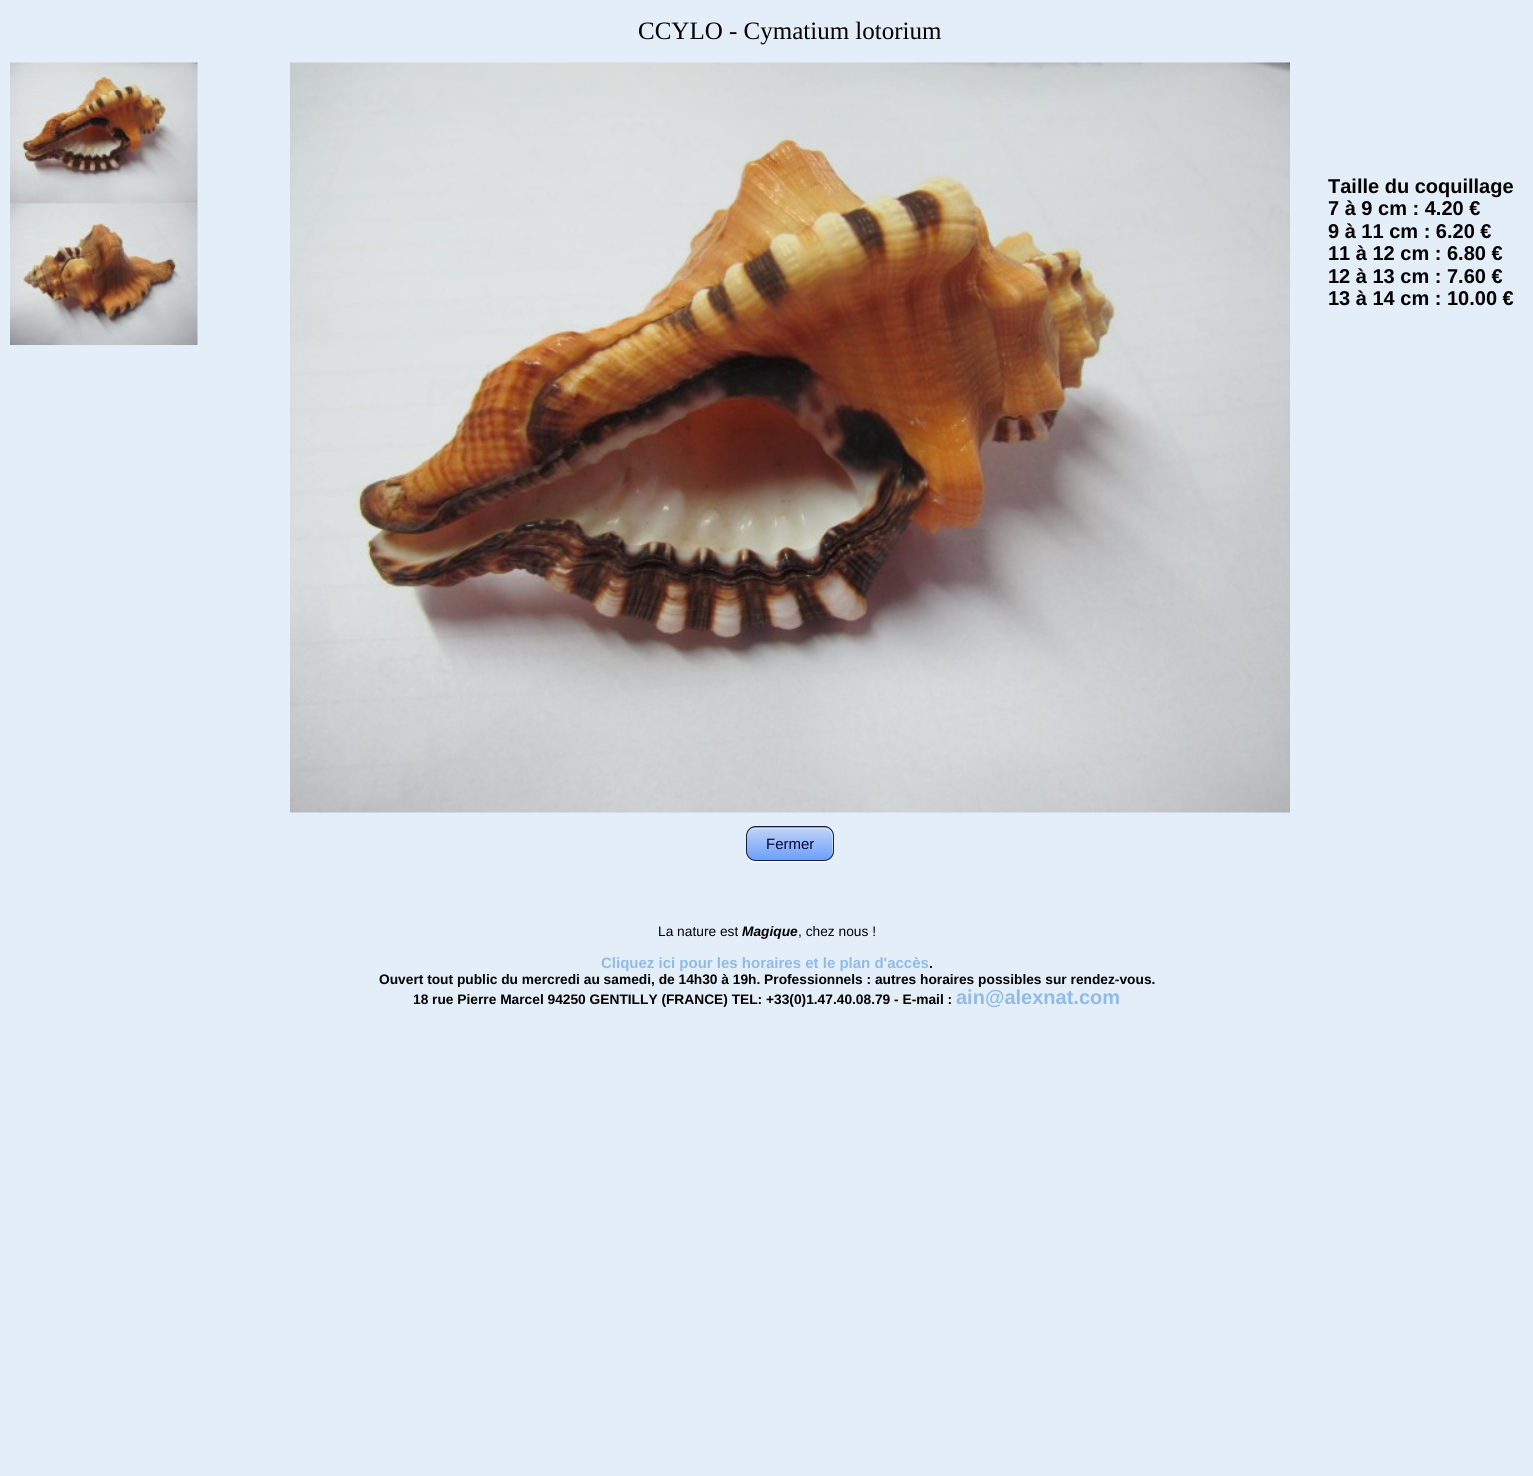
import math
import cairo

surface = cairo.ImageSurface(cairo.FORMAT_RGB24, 1533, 1476)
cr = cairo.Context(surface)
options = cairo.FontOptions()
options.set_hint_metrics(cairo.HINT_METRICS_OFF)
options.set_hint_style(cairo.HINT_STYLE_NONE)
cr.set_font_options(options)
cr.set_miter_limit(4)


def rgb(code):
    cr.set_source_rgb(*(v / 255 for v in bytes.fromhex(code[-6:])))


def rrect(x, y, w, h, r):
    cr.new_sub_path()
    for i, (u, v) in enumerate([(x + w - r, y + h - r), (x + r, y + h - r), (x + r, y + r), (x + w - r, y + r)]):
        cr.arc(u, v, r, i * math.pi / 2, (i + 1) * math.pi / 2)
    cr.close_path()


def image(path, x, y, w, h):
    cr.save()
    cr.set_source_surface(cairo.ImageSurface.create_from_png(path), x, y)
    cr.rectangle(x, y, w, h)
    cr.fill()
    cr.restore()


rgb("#e3eef9")
cr.paint()
image("img/1.png", 10, 62, 188, 142)
image("img/2.png", 10, 203, 188, 142)
image("img/3.png", 290, 62, 1000, 751)
rgb("#eef5fb")
cr.new_path()
cr.move_to(746, 836)
cr.line_to(746, 848)
cr.curve_to(746, 865, 752, 863, 767, 863)
cr.line_to(813, 863)
cr.curve_to(828, 863, 834, 865, 834, 848)
cr.line_to(834, 836)
cr.line_to(834, 846)
cr.curve_to(834, 853, 833, 860, 826, 861)
cr.line_to(754, 861)
cr.curve_to(747, 860, 746, 853, 746, 846)
cr.close_path()
cr.fill()
cr.save()
rrect(746, 826, 88, 35, 10)
cr.clip()
gradient = cairo.LinearGradient(790, 795, 790, 828)
gradient.add_color_stop_rgba(0, 0.749, 0.827, 0.961, 1)
gradient.add_color_stop_rgba(1, 0.427, 0.624, 0.988, 1)
cr.set_source(gradient)
cr.rectangle(746, 826, 88, 2)
cr.fill()
gradient = cairo.LinearGradient(790, 828, 790, 860)
gradient.add_color_stop_rgba(0, 0.749, 0.827, 0.961, 1)
gradient.add_color_stop_rgba(1, 0.427, 0.624, 0.988, 1)
cr.set_source(gradient)
cr.rectangle(746, 828, 88, 32)
cr.fill()
cr.restore()
cr.set_source_rgba(1, 1, 1, 0.4)
cr.new_path()
cr.move_to(756, 829)
cr.line_to(824, 829)
cr.curve_to(829, 829, 832, 833, 832, 838)
cr.line_to(832, 852)
cr.curve_to(832, 854, 832, 855, 831, 857)
cr.curve_to(832, 855, 833, 853, 833, 851)
cr.line_to(833, 837)
cr.curve_to(833, 832, 829, 828, 824, 828)
cr.line_to(757, 828)
cr.curve_to(752, 828, 748, 832, 748, 837)
cr.line_to(748, 838)
cr.curve_to(748, 833, 751, 829, 756, 829)
cr.close_path()
cr.fill()
rrect(746.5, 826.5, 87, 34, 9.5)
rgb("#181f40")
cr.set_line_width(1)
cr.stroke()
cr.select_font_face("Liberation Serif")
cr.set_font_size(25)
rgb("#000000")
cr.move_to(638, 39)
cr.show_text("CCYLO - Cymatium lotorium")
cr.select_font_face("Liberation Sans", cairo.FONT_SLANT_NORMAL, cairo.FONT_WEIGHT_BOLD)
cr.set_font_size(20)
for x, y, s in [
    (1328, 193, "Taille du coquillage"),
    (1328, 215, "7 à 9 cm : 4.20 €"),
    (1328, 238, "9 à 11 cm : 6.20 €"),
    (1328, 260, "11 à 12 cm : 6.80 €"),
    (1328, 283, "12 à 13 cm : 7.60 €"),
    (1328, 305, "13 à 14 cm : 10.00 €"),
]:
    cr.move_to(x, y)
    cr.show_text(s)
cr.select_font_face("Liberation Sans")
cr.set_font_size(15)
rgb("#02053b")
cr.move_to(766, 849)
cr.show_text("Fermer")
cr.set_font_size(13.75)
rgb("#000000")
cr.move_to(658, 936)
cr.show_text("La nature est")
cr.select_font_face("Liberation Sans", cairo.FONT_SLANT_ITALIC, cairo.FONT_WEIGHT_BOLD)
cr.move_to(742, 936)
cr.show_text("Magique")
cr.select_font_face("Liberation Sans")
cr.move_to(798, 936)
cr.show_text(", chez nous !")
cr.select_font_face("Liberation Sans", cairo.FONT_SLANT_NORMAL, cairo.FONT_WEIGHT_BOLD)
cr.set_font_size(15)
rgb("#8fbbe6")
cr.move_to(601, 968)
cr.show_text("Cliquez ici pour les horaires et le plan d'accès")
cr.set_font_size(13.75)
rgb("#000000")
for x, y, s in [
    (929, 968, "."),
    (379, 984, "Ouvert tout public du mercredi au samedi, de 14h30 à 19h. Professionnels : autres horaires possibles sur rendez-vous."),
    (413, 1004, "18 rue Pierre Marcel 94250 GENTILLY (FRANCE) TEL: +33(0)1.47.40.08.79 - E-mail :"),
]:
    cr.move_to(x, y)
    cr.show_text(s)
cr.set_font_size(20)
rgb("#8fbbe6")
cr.move_to(956, 1004)
cr.show_text("ain@alexnat.com")
surface.write_to_png("page.png")
